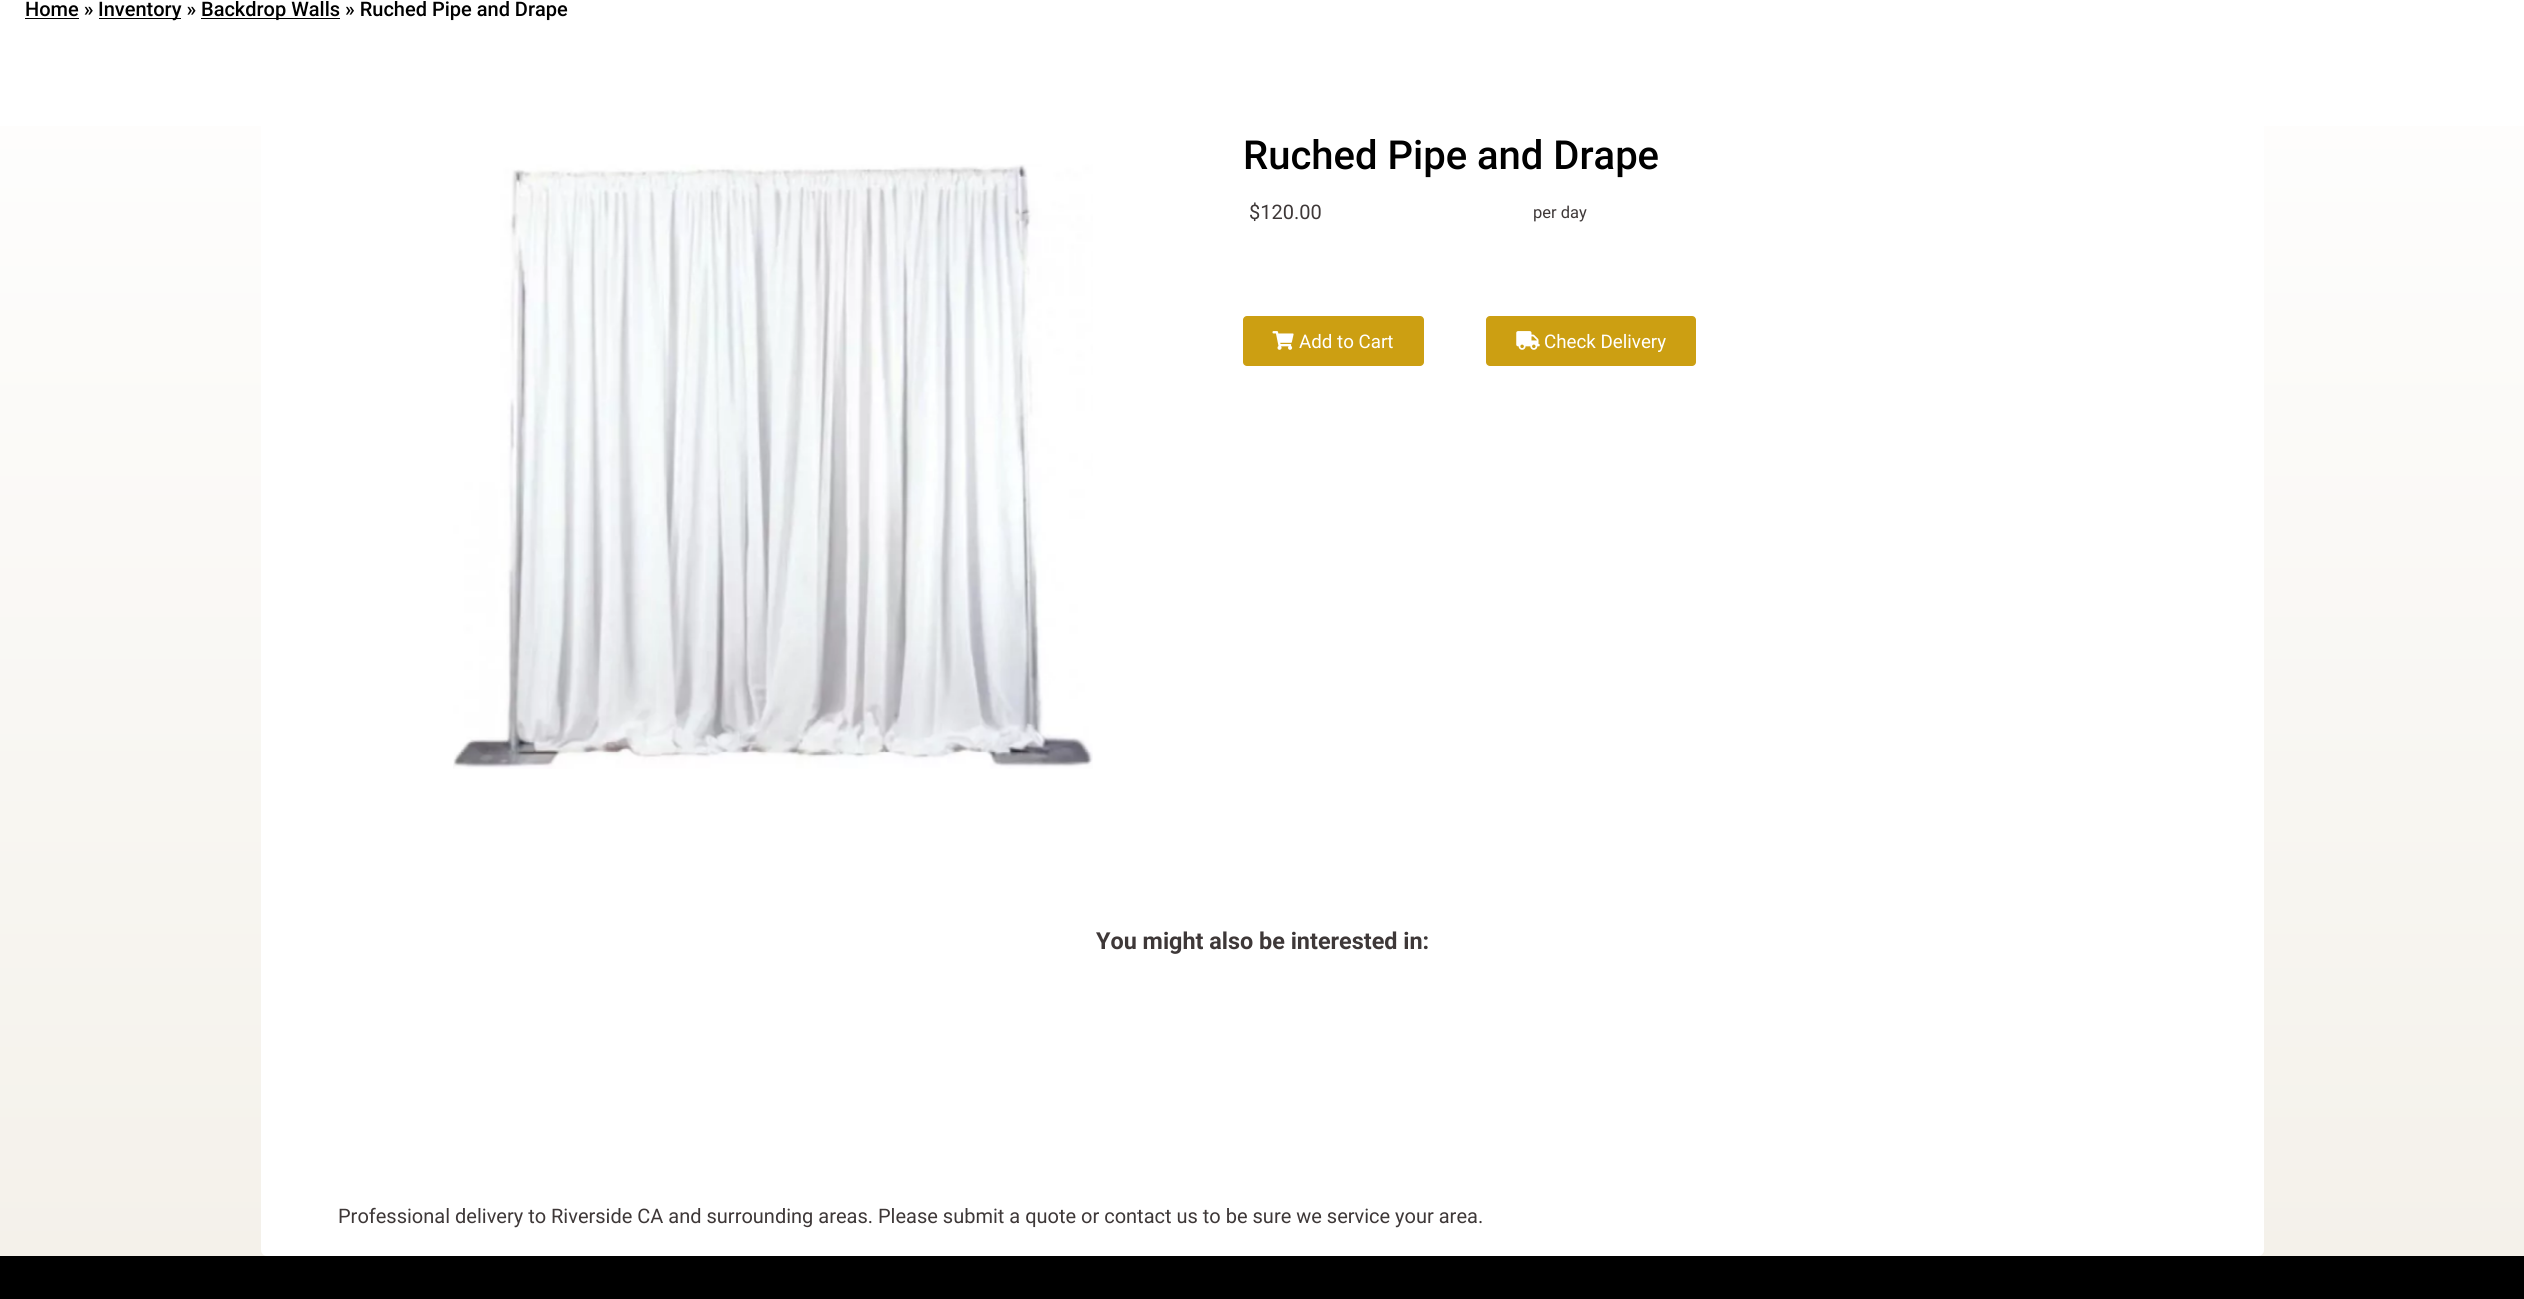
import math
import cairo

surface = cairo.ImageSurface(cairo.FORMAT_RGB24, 2524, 1299)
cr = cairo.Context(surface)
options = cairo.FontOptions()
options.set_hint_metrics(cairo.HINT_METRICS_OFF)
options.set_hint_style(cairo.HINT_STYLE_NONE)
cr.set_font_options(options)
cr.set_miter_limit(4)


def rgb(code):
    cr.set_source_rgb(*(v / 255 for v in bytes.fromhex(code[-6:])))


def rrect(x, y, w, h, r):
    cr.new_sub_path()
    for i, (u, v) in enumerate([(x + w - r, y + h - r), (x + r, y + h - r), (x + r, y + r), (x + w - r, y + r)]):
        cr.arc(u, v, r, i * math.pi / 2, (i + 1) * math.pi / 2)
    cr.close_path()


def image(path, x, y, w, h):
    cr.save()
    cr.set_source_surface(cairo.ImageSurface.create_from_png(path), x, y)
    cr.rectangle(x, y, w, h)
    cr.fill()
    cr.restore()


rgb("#ffffff")
cr.paint()
gradient = cairo.LinearGradient(1263, 1256, 1263, -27)
gradient.add_color_stop_rgba(0, 0.957, 0.945, 0.918, 1)
gradient.add_color_stop_rgba(1, 1, 1, 1, 1)
cr.set_source(gradient)
cr.rectangle(0, 126, 2524, 1130)
cr.fill()
for x, y, w, h, color in [
    (25, 18, 54, 1, "#000000"),
    (99, 18, 82, 1, "#000000"),
    (201, 18, 139, 1, "#000000"),
]:
    rgb(color)
    cr.rectangle(x, y, w, h)
    cr.fill()
rgb("#ffffff")
rrect(261, 46, 2003, 1210, 6)
cr.fill()
image("img/1.png", 453, 164, 640, 605)
rgb("#cc9f12")
rrect(1243, 316, 181, 50, 4)
cr.fill()
image("img/2.png", 1272, 331, 22, 19)
rrect(1486, 316, 210, 50, 4)
cr.fill()
image("img/3.png", 1516, 331, 24, 19)
rgb("#000000")
cr.rectangle(0, 1256, 2524, 43)
cr.fill()
cr.select_font_face("Roboto Medium")
cr.set_font_size(20)
for x, y, s in [
    (25, 16, "Home »"),
    (98, 16, "Inventory »"),
    (201, 16, "Backdrop Walls » Ruched Pipe and Drape"),
]:
    cr.move_to(x, y)
    cr.show_text(s)
cr.set_font_size(40)
cr.move_to(1243, 169)
cr.show_text("Ruched Pipe and Drape")
cr.select_font_face("Roboto")
cr.set_font_size(20)
rgb("#3e3838")
cr.move_to(1249, 219)
cr.show_text("$120.00")
cr.set_font_size(16.5)
cr.move_to(1533, 218)
cr.show_text("per day")
cr.set_font_size(18.75)
rgb("#ffffff")
cr.move_to(1299, 348)
cr.show_text("Add to Cart")
cr.move_to(1544, 348)
cr.show_text("Check Delivery")
cr.select_font_face("Roboto", cairo.FONT_SLANT_NORMAL, cairo.FONT_WEIGHT_BOLD)
cr.set_font_size(23.4)
rgb("#3e3838")
cr.move_to(1096, 949)
cr.show_text("You might also be interested in:")
cr.select_font_face("Roboto")
cr.set_font_size(20)
cr.move_to(338, 1223)
cr.show_text("Professional delivery to Riverside CA and surrounding areas. Please submit a quote or contact us to be sure we service your area.")
surface.write_to_png("page.png")
